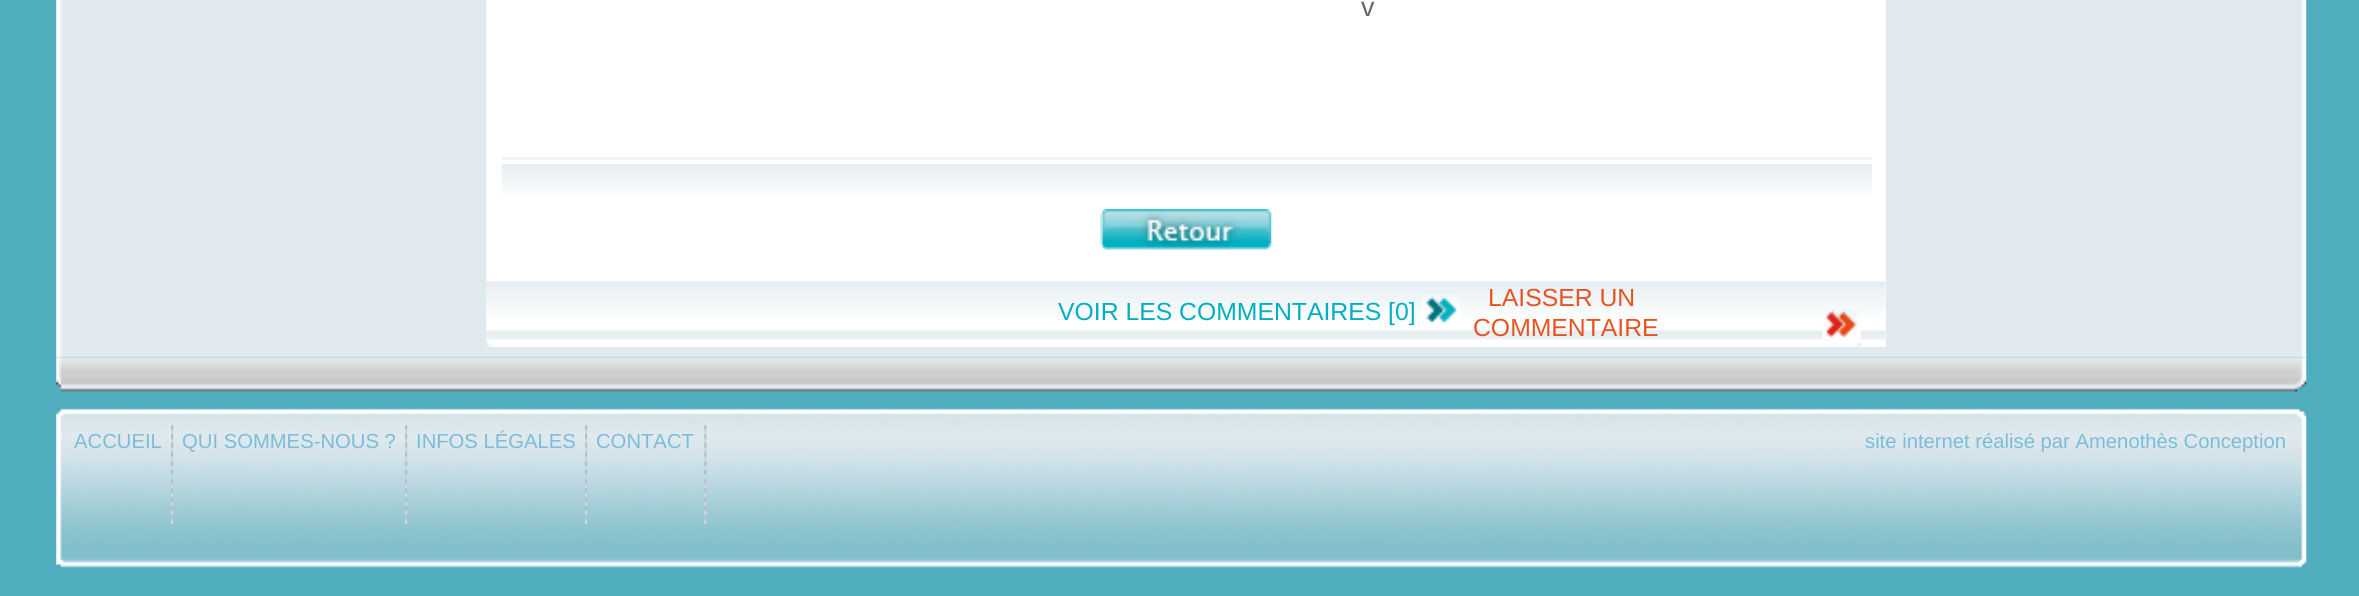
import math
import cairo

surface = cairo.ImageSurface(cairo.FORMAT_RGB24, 2359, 596)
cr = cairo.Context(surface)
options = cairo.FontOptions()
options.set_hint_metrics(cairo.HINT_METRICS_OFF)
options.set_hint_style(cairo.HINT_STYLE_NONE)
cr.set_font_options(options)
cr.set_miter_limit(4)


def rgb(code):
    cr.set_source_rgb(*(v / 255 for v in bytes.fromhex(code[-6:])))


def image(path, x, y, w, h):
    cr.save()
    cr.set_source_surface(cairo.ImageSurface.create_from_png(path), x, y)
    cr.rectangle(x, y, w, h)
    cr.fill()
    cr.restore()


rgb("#50adbe")
cr.paint()
image("img/1.png", 56, 0, 2251, 358)
rgb("#ffffff")
cr.rectangle(486, 0, 1400, 347)
cr.fill()
rgb("#f3f3f3")
cr.rectangle(502, 157, 1370, 3)
cr.fill()
image("img/2.png", 501, 164, 1371, 32)
image("img/3.png", 1100, 209, 172, 41)
image("img/4.png", 486, 281, 1400, 59)
image("img/5.png", 1422, 295, 38, 29)
image("img/6.png", 1822, 309, 39, 31)
image("img/7.png", 486, 339, 6, 8)
image("img/8.png", 1856, 341, 5, 6)
image("img/9.png", 56, 357, 2251, 211)
image("img/10.png", 171, 425, 3, 99)
image("img/11.png", 405, 425, 3, 99)
image("img/12.png", 585, 425, 3, 99)
image("img/13.png", 704, 425, 3, 99)
cr.select_font_face("Liberation Sans")
cr.set_font_size(27)
rgb("#666666")
cr.move_to(1361, 16)
cr.show_text("v")
cr.set_font_size(24.75)
rgb("#00afc1")
cr.move_to(1058, 320)
cr.show_text("VOIR LES COMMENTAIRES [0]")
rgb("#e75321")
cr.move_to(1488, 306)
cr.show_text("LAISSER UN")
cr.move_to(1473, 336)
cr.show_text("COMMENTAIRE")
cr.set_font_size(20.25)
rgb("#7bbdd8")
for x, y, s in [
    (74, 448, "ACCUEIL"),
    (182, 448, "QUI SOMMES-NOUS ?"),
    (416, 448, "INFOS LÉGALES"),
    (596, 448, "CONTACT"),
    (1865, 448, "site internet réalisé par Amenothès Conception"),
]:
    cr.move_to(x, y)
    cr.show_text(s)
surface.write_to_png("page.png")
